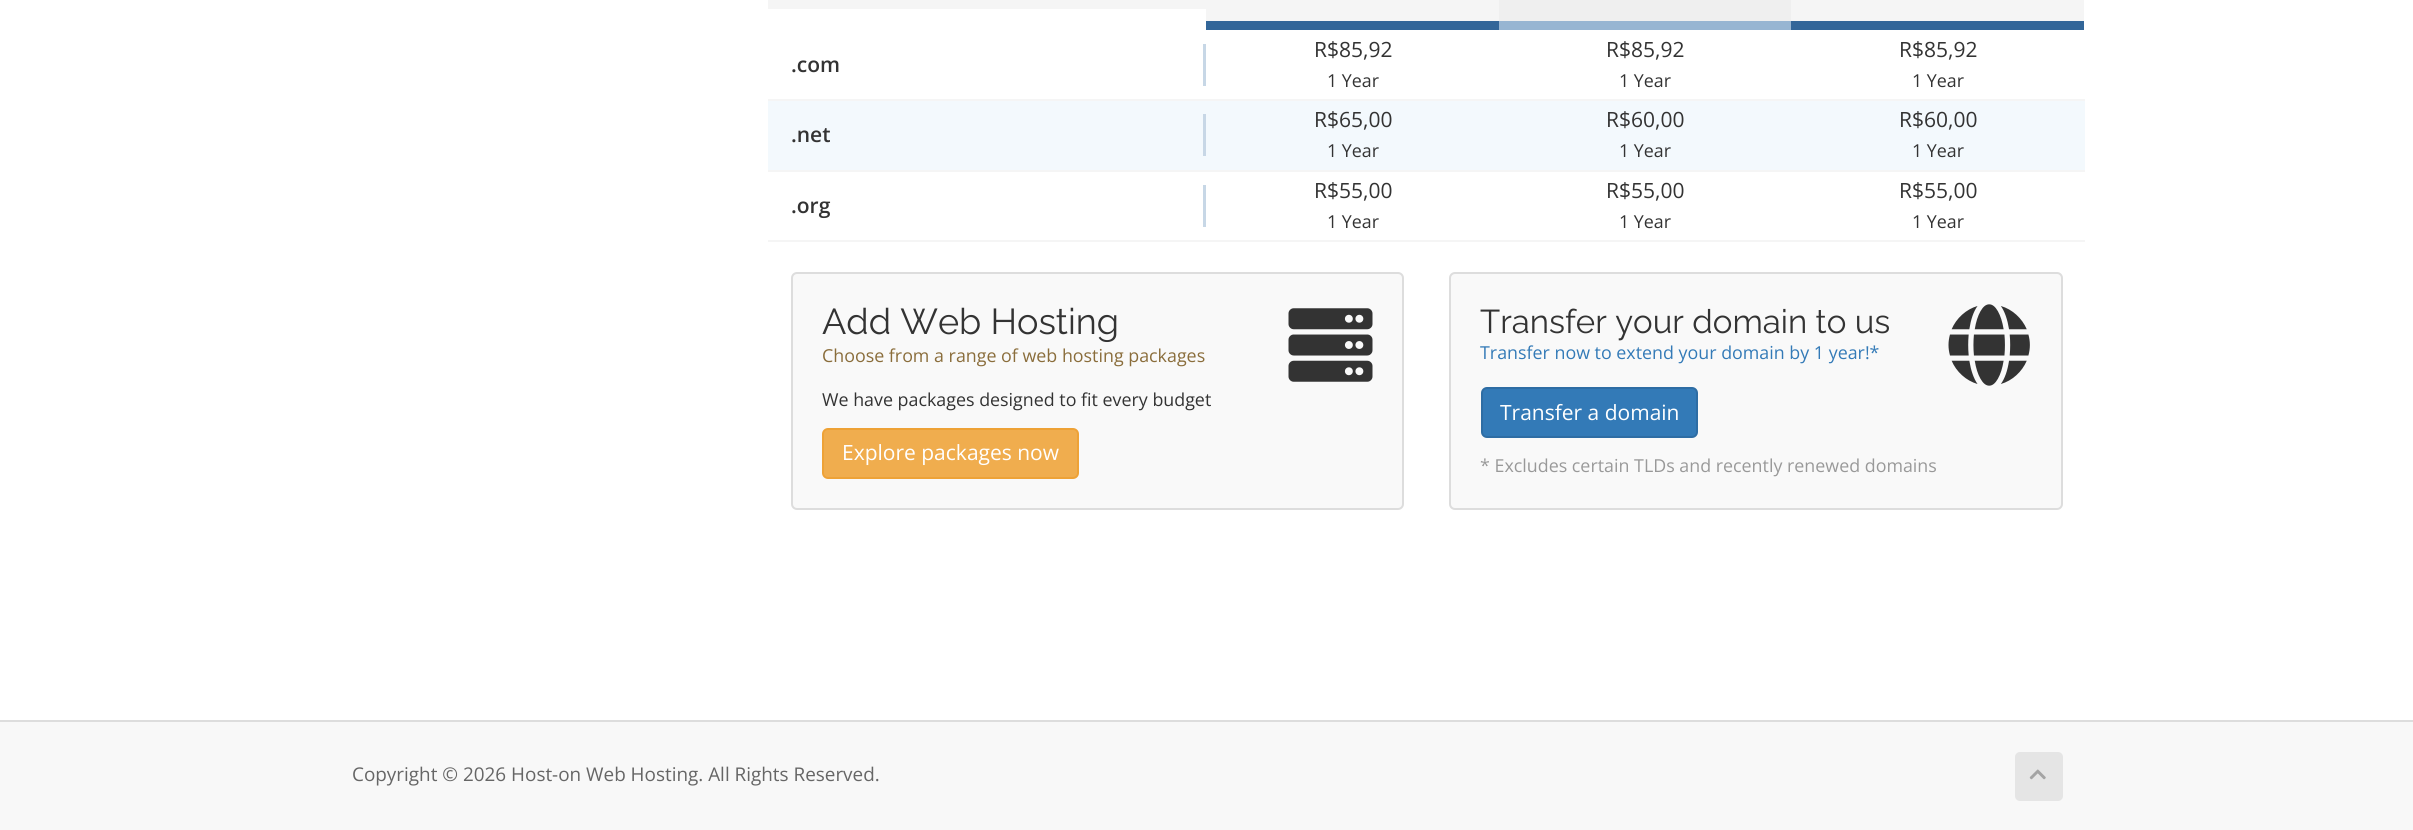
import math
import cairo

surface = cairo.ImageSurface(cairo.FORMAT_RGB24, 2413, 830)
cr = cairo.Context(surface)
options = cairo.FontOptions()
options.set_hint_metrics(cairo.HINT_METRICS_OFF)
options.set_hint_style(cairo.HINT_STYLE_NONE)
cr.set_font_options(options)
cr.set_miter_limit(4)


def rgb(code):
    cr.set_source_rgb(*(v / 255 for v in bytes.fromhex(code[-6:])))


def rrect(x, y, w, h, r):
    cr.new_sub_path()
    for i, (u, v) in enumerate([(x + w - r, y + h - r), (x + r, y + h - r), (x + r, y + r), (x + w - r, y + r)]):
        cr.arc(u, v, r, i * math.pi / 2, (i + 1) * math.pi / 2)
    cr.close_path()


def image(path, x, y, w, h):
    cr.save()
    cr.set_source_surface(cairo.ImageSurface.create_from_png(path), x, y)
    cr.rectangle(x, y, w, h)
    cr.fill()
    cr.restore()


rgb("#f8f8f8")
cr.paint()
for x, y, w, h, color in [
    (0, 0, 2413, 720, "#ffffff"),
    (768, 0, 438, 9, "#f5f5f5"),
    (1206, 0, 878, 21, "#f5f5f5"),
    (1206, 21, 293, 9, "#336699"),
    (1499, 0, 292, 21, "#efefef"),
    (1499, 21, 292, 9, "#97b5d2"),
    (1791, 21, 293, 9, "#336699"),
    (768, 99, 1317, 2, "#f5f5f5"),
    (1203, 44, 3, 42, "#c7d7e6"),
    (768, 101, 1317, 69, "#f3f9fd"),
    (768, 170, 1317, 2, "#f5f5f5"),
    (1203, 114, 3, 42, "#c7d7e6"),
    (768, 240, 1317, 2, "#f5f5f5"),
    (1203, 185, 3, 42, "#c7d7e6"),
]:
    rgb(color)
    cr.rectangle(x, y, w, h)
    cr.fill()
rgb("#f9f9f9")
rrect(792, 273, 611, 236, 5)
cr.fill_preserve()
rgb("#dddddd")
cr.stroke()
image("img/1.png", 1288, 308, 85, 74)
rgb("#f0ad4e")
rrect(823, 429, 255, 49, 5)
cr.fill_preserve()
rgb("#eea236")
cr.stroke()
rgb("#f9f9f9")
rrect(1450, 273, 612, 236, 5)
cr.fill_preserve()
rgb("#dddddd")
cr.stroke()
image("img/2.png", 1948, 304, 82, 82)
rgb("#337ab7")
rrect(1482, 388, 215, 49, 5)
cr.fill_preserve()
rgb("#2e6da4")
cr.stroke()
rgb("#dddddd")
cr.rectangle(0, 720, 2413, 2)
cr.fill()
rgb("#e5e5e5")
rrect(2015, 752, 48, 49, 5)
cr.fill()
image("img/3.png", 2029, 769, 17, 11)
cr.select_font_face("Open Sans SemiBold")
cr.set_font_size(21)
rgb("#333333")
cr.move_to(791, 72)
cr.show_text(".com")
cr.select_font_face("Open Sans")
cr.move_to(1314, 57)
cr.show_text("R$85,92")
cr.set_font_size(17.85)
cr.move_to(1327, 87)
cr.show_text("1 Year")
cr.set_font_size(21)
cr.move_to(1606, 57)
cr.show_text("R$85,92")
cr.set_font_size(17.85)
cr.move_to(1619, 87)
cr.show_text("1 Year")
cr.set_font_size(21)
cr.move_to(1899, 57)
cr.show_text("R$85,92")
cr.set_font_size(17.85)
cr.move_to(1912, 87)
cr.show_text("1 Year")
cr.select_font_face("Open Sans SemiBold")
cr.set_font_size(21)
cr.move_to(791, 142)
cr.show_text(".net")
cr.select_font_face("Open Sans")
cr.move_to(1314, 127)
cr.show_text("R$65,00")
cr.set_font_size(17.85)
cr.move_to(1327, 157)
cr.show_text("1 Year")
cr.set_font_size(21)
cr.move_to(1606, 127)
cr.show_text("R$60,00")
cr.set_font_size(17.85)
cr.move_to(1619, 157)
cr.show_text("1 Year")
cr.set_font_size(21)
cr.move_to(1899, 127)
cr.show_text("R$60,00")
cr.set_font_size(17.85)
cr.move_to(1912, 157)
cr.show_text("1 Year")
cr.select_font_face("Open Sans SemiBold")
cr.set_font_size(21)
cr.move_to(791, 213)
cr.show_text(".org")
cr.select_font_face("Open Sans")
cr.move_to(1314, 198)
cr.show_text("R$55,00")
cr.set_font_size(17.85)
cr.move_to(1327, 228)
cr.show_text("1 Year")
cr.set_font_size(21)
cr.move_to(1606, 198)
cr.show_text("R$55,00")
cr.set_font_size(17.85)
cr.move_to(1619, 228)
cr.show_text("1 Year")
cr.set_font_size(21)
cr.move_to(1899, 198)
cr.show_text("R$55,00")
cr.set_font_size(17.85)
cr.move_to(1912, 228)
cr.show_text("1 Year")
cr.select_font_face("Raleway")
cr.set_font_size(36)
cr.move_to(822, 334)
cr.show_text("Add Web Hosting")
cr.select_font_face("Open Sans")
cr.set_font_size(17.85)
rgb("#8a6d3b")
cr.move_to(822, 362)
cr.show_text("Choose from a range of web hosting packages")
rgb("#333333")
cr.move_to(822, 406)
cr.show_text("We have packages designed to fit every budget")
cr.set_font_size(21)
rgb("#ffffff")
cr.move_to(842, 460)
cr.show_text("Explore packages now")
cr.select_font_face("Raleway")
cr.set_font_size(33)
rgb("#333333")
cr.move_to(1480, 333)
cr.show_text("Transfer your domain to us")
cr.select_font_face("Open Sans")
cr.set_font_size(17.85)
rgb("#337ab7")
cr.move_to(1480, 359)
cr.show_text("Transfer now to extend your domain by 1 year!*")
cr.set_font_size(21)
rgb("#ffffff")
cr.move_to(1500, 420)
cr.show_text("Transfer a domain")
cr.set_font_size(17.85)
rgb("#999999")
cr.move_to(1480, 472)
cr.show_text("* Excludes certain TLDs and recently renewed domains")
cr.set_font_size(18.9)
rgb("#666666")
cr.move_to(352, 781)
cr.show_text("Copyright © 2026 Host-on Web Hosting. All Rights Reserved.")
surface.write_to_png("page.png")
